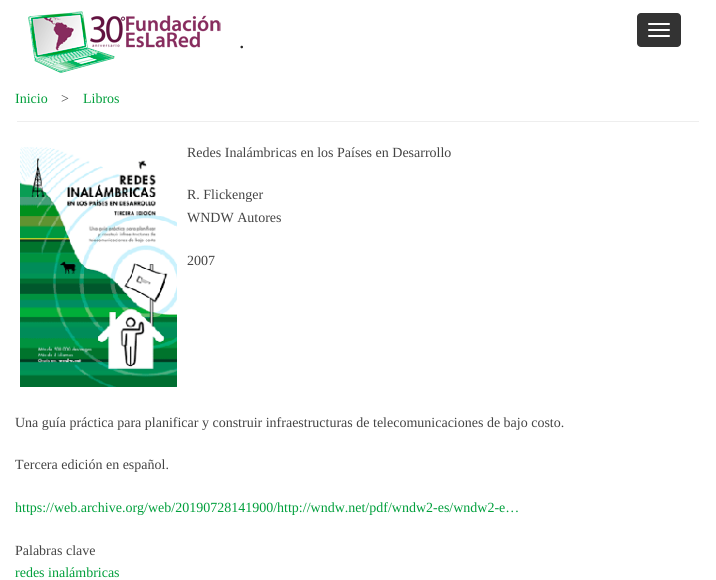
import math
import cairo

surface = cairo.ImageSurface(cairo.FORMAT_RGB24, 716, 580)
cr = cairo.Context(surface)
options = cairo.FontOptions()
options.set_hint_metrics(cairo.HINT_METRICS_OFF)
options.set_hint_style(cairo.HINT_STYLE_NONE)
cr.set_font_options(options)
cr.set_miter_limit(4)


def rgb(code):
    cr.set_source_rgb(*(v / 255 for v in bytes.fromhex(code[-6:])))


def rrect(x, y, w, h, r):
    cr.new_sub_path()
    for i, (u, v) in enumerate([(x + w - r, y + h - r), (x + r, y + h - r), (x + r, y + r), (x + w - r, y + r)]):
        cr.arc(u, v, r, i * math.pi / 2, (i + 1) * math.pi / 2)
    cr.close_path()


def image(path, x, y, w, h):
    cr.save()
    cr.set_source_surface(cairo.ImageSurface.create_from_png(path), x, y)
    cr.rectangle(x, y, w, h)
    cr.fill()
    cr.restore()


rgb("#ffffff")
cr.paint()
image("img/1.png", 28, 11, 193, 62)
rgb("#333333")
rrect(637, 13, 44, 34, 4)
cr.fill()
rgb("#ffffff")
rrect(648, 23, 22, 2, 1)
cr.fill()
rrect(648, 29, 22, 2, 1)
cr.fill()
rrect(648, 35, 22, 2, 1)
cr.fill()
rgb("#eeeeee")
cr.rectangle(17, 121, 682, 1)
cr.fill()
image("img/2.png", 20, 147, 157, 240)
cr.select_font_face("Liberation Serif")
cr.set_font_size(22)
rgb("#272727")
cr.move_to(239, 48)
cr.show_text(".")
cr.set_font_size(14)
rgb("#009f3b")
cr.move_to(15, 103)
cr.show_text("Inicio")
rgb("#444444")
cr.move_to(61, 103)
cr.show_text(">")
rgb("#009f3b")
cr.move_to(83, 103)
cr.show_text("Libros")
rgb("#444444")
for x, y, s in [
    (187, 157, "Redes Inalámbricas en los Países en Desarrollo"),
    (187, 199, "R. Flickenger"),
    (187, 222, "WNDW Autores"),
    (187, 265, "2007"),
    (15, 427, "Una guía práctica para planificar y construir infraestructuras de telecomunicaciones de bajo costo."),
    (15, 469, "Tercera edición en español."),
]:
    cr.move_to(x, y)
    cr.show_text(s)
rgb("#009f3b")
cr.move_to(15, 512)
cr.show_text("https://web.archive.org/web/20190728141900/http://wndw.net/pdf/wndw2-es/wndw2-e…")
rgb("#444444")
cr.move_to(15, 555)
cr.show_text("Palabras clave")
rgb("#009f3b")
cr.move_to(15, 577)
cr.show_text("redes inalámbricas")
surface.write_to_png("page.png")
